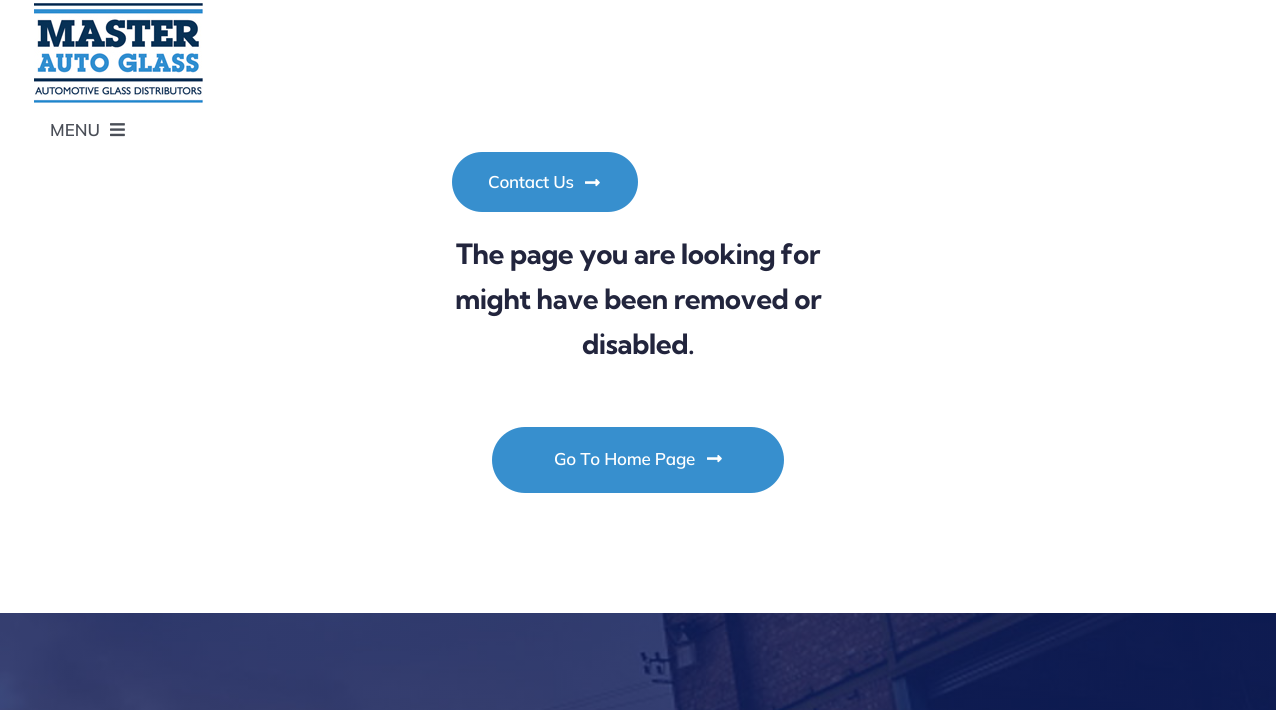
import math
import cairo

surface = cairo.ImageSurface(cairo.FORMAT_RGB24, 1276, 710)
cr = cairo.Context(surface)
options = cairo.FontOptions()
options.set_hint_metrics(cairo.HINT_METRICS_OFF)
options.set_hint_style(cairo.HINT_STYLE_NONE)
cr.set_font_options(options)
cr.set_miter_limit(4)


def rgb(code):
    cr.set_source_rgb(*(v / 255 for v in bytes.fromhex(code[-6:])))


def tracked(x, y, s, letter, word):
    cr.move_to(x, y)
    for ch in s:
        cr.show_text(ch)
        cr.rel_move_to(letter + word * (ch == ' '), 0)


def rrect(x, y, w, h, r):
    cr.new_sub_path()
    for i, (u, v) in enumerate([(x + w - r, y + h - r), (x + r, y + h - r), (x + r, y + r), (x + w - r, y + r)]):
        cr.arc(u, v, r, i * math.pi / 2, (i + 1) * math.pi / 2)
    cr.close_path()


def image(path, x, y, w, h):
    cr.save()
    cr.set_source_surface(cairo.ImageSurface.create_from_png(path), x, y)
    cr.rectangle(x, y, w, h)
    cr.fill()
    cr.restore()


rgb("#ffffff")
cr.paint()
image("img/1.png", 34, 3, 169, 100)
image("img/2.png", 110, 123, 15, 14)
rgb("#378fce")
rrect(453, 153, 184, 58, 29)
cr.fill_preserve()
cr.stroke()
image("img/3.png", 585, 178, 15, 9)
rrect(493, 428, 290, 64, 32)
cr.fill_preserve()
cr.stroke()
image("img/3.png", 707, 454, 15, 9)
image("img/4.png", 0, 613, 1276, 97)
cr.select_font_face("Mulish SemiBold")
cr.set_font_size(17)
rgb("#4a4e57")
cr.move_to(50, 136)
cr.show_text("MENU")
rgb("#ffffff")
tracked(488, 188, "Contact Us", -0.25, 0)
cr.select_font_face("Kumbh Sans", cairo.FONT_SLANT_NORMAL, cairo.FONT_WEIGHT_BOLD)
cr.set_font_size(28)
rgb("#22253d")
for x, y, s in [
    (456, 264, "The page you are looking for"),
    (455, 309, "might have been removed or"),
    (582, 354, "disabled."),
]:
    tracked(x, y, s, -0.55, 0)
cr.select_font_face("Mulish SemiBold")
cr.set_font_size(17)
rgb("#ffffff")
tracked(554, 465, "Go To Home Page", -0.25, 0)
surface.write_to_png("page.png")
